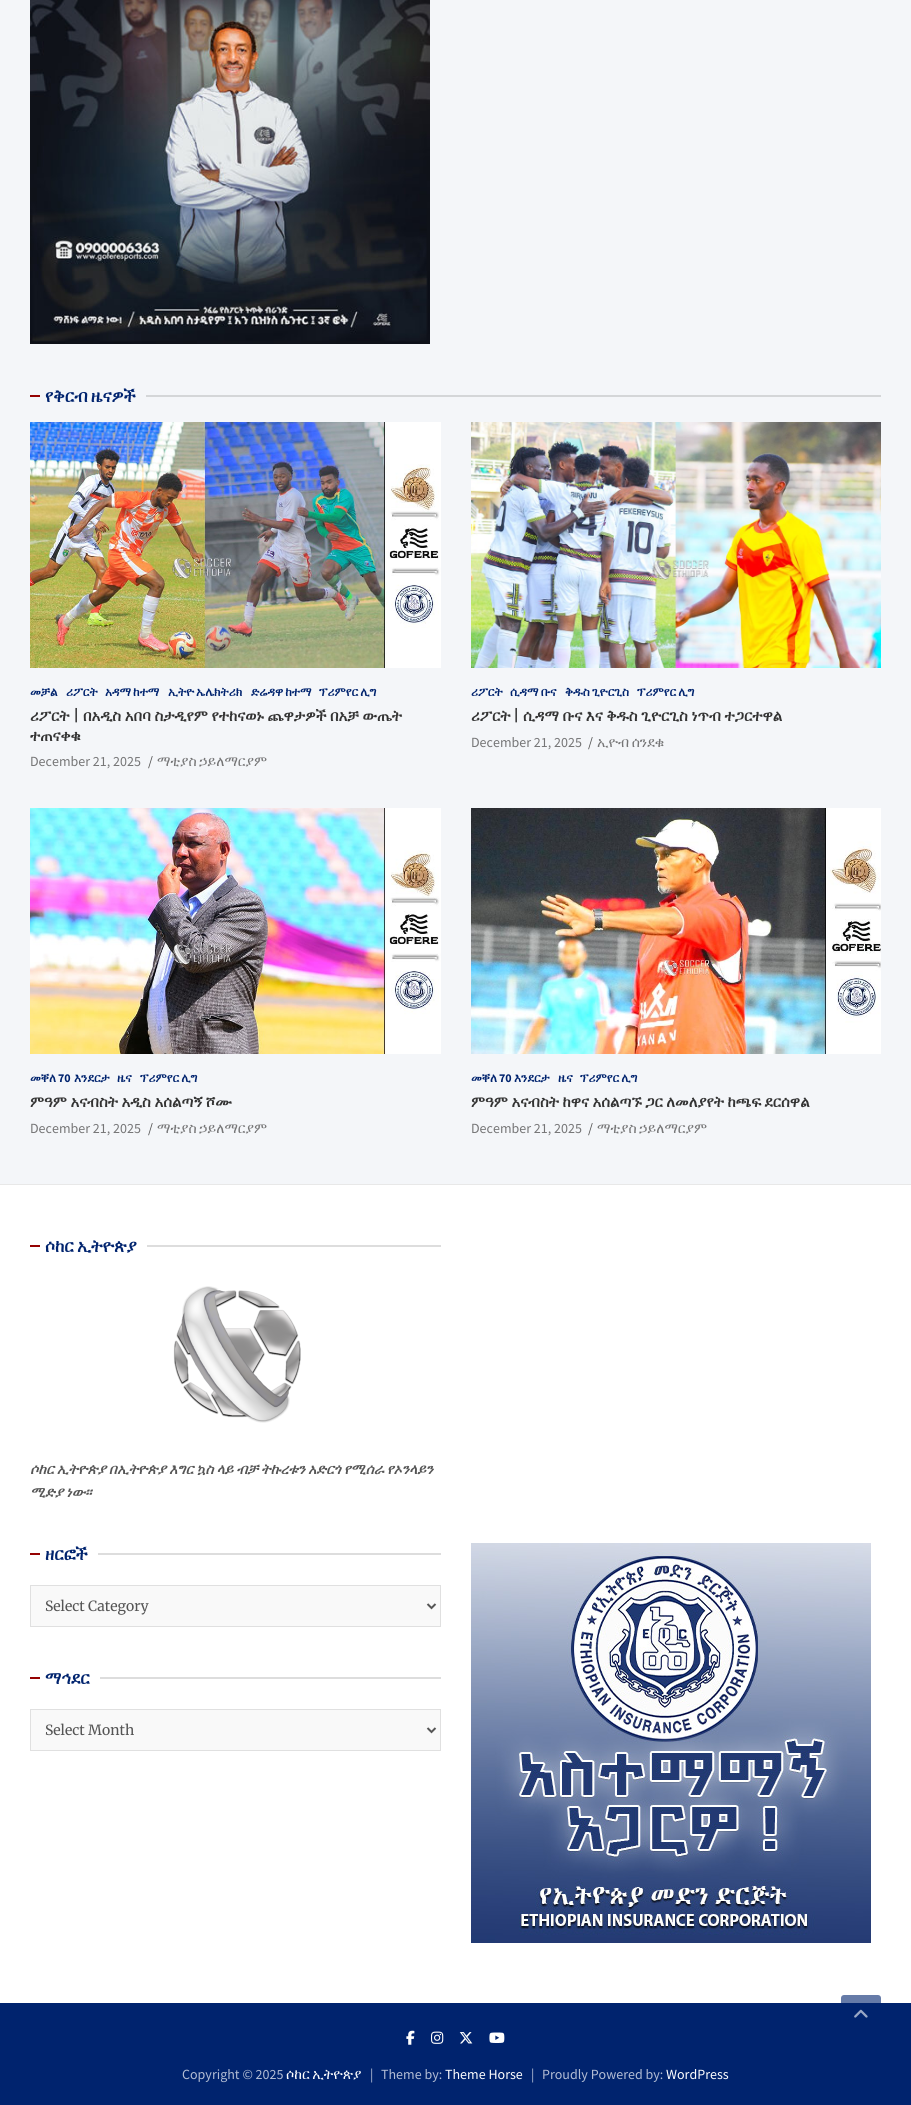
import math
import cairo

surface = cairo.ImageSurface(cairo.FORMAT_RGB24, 911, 2105)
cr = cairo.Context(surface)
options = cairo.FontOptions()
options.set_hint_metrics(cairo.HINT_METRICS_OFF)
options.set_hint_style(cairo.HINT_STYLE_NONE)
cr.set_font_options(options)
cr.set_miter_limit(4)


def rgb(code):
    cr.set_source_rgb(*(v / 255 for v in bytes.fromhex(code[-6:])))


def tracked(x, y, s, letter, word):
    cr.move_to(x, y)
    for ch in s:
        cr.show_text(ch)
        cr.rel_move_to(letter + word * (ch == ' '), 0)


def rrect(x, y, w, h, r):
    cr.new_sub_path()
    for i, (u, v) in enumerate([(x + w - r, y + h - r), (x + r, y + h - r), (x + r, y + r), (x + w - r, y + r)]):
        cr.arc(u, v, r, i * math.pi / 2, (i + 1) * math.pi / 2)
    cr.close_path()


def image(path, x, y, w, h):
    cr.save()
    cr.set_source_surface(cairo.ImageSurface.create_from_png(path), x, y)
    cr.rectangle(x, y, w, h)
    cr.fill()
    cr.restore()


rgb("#f4f6f9")
cr.paint()
image("img/1.png", 30, 0, 400, 344)
rgb("#950202")
cr.rectangle(30, 395, 10, 2)
cr.fill()
rgb("#d4d6d8")
cr.rectangle(146, 395, 735, 2)
cr.fill()
image("img/2.png", 30, 422, 411, 246)
image("img/3.png", 471, 422, 410, 246)
image("img/4.png", 30, 808, 411, 246)
image("img/5.png", 471, 808, 410, 246)
for x, y, w, h, color in [
    (0, 1185, 911, 818, "#ffffff"),
    (0, 1184, 911, 1, "#e8e8e8"),
    (30, 1245, 10, 2, "#950202"),
    (147, 1245, 294, 2, "#dddddd"),
]:
    rgb(color)
    cr.rectangle(x, y, w, h)
    cr.fill()
image("img/6.png", 173, 1286, 128, 137)
rgb("#950202")
cr.rectangle(30, 1553, 10, 2)
cr.fill()
rgb("#dddddd")
cr.rectangle(98, 1553, 343, 2)
cr.fill()
rgb("#f9f9f9")
cr.rectangle(30.5, 1585.5, 410, 41)
cr.fill_preserve()
rgb("#e0e0e0")
cr.set_line_width(1)
cr.stroke()
cr.new_path()
cr.move_to(427.5, 1604)
cr.line_to(431.5, 1608)
cr.line_to(435.5, 1604)
rgb("#555555")
cr.set_line_width(2)
cr.stroke()
rgb("#950202")
cr.rectangle(30, 1677, 10, 2)
cr.fill()
rgb("#dddddd")
cr.rectangle(100, 1677, 341, 2)
cr.fill()
rgb("#f9f9f9")
cr.rectangle(30.5, 1709.5, 410, 41)
cr.fill_preserve()
rgb("#e0e0e0")
cr.set_line_width(1)
cr.stroke()
cr.new_path()
cr.move_to(427.5, 1728)
cr.line_to(431.5, 1732)
cr.line_to(435.5, 1728)
rgb("#555555")
cr.set_line_width(2)
cr.stroke()
image("img/7.png", 471, 1543, 400, 400)
rgb("#00236e")
cr.rectangle(0, 2003, 911, 102)
cr.fill()
image("img/8.png", 406, 2030, 9, 15)
image("img/9.png", 431, 2031, 13, 13)
image("img/10.png", 459, 2032, 14, 12)
image("img/11.png", 489, 2032, 16, 11)
cr.set_source_rgba(0, 0.137, 0.431, 0.6)
rrect(841, 1995, 40, 40, 3)
cr.fill()
image("img/12.png", 854, 2009, 14, 9)
cr.select_font_face("FreeSerif", cairo.FONT_SLANT_NORMAL, cairo.FONT_WEIGHT_BOLD)
cr.set_font_size(17)
rgb("#00236e")
tracked(45, 402, "የቅርብ ዜናዎች", 0, -1)
cr.set_font_size(12)
cr.move_to(30, 696)
cr.show_text("መቻል")
cr.move_to(66, 696)
cr.show_text("ሪፖርት")
for x, y, s in [
    (105, 696, "አዳማ ከተማ"),
    (168, 696, "ኢትዮ ኤሌክትሪክ"),
    (251, 696, "ድሬዳዋ ከተማ"),
    (319, 696, "ፕሪምየር ሊግ"),
]:
    tracked(x, y, s, 0, -1)
cr.set_font_size(15)
rgb("#333333")
cr.move_to(30, 721)
cr.show_text("ሪፖርት")
cr.select_font_face("Merriweather", cairo.FONT_SLANT_NORMAL, cairo.FONT_WEIGHT_BOLD)
cr.move_to(73, 721)
cr.show_text("|")
cr.select_font_face("FreeSerif", cairo.FONT_SLANT_NORMAL, cairo.FONT_WEIGHT_BOLD)
cr.move_to(83, 721)
cr.show_text("በአዲስ አበባ ስታዲየም የተከናወኑ ጨዋታዎች በአቻ ውጤት")
cr.move_to(30, 741)
cr.show_text("ተጠናቀቁ")
cr.select_font_face("Source Sans Pro")
cr.set_font_size(14)
rgb("#757576")
cr.move_to(30, 766)
cr.show_text("December 21, 2025")
rgb("#555555")
cr.move_to(148, 766)
cr.show_text("/")
cr.select_font_face("FreeSerif")
rgb("#757576")
tracked(157, 766, "ማቲያስ ኃይለማርያም", 0, -1)
cr.select_font_face("FreeSerif", cairo.FONT_SLANT_NORMAL, cairo.FONT_WEIGHT_BOLD)
cr.set_font_size(12)
rgb("#00236e")
cr.move_to(471, 696)
cr.show_text("ሪፖርት")
for x, y, s in [
    (510, 696, "ሲዳማ ቡና"),
    (565, 696, "ቅዱስ ጊዮርጊስ"),
    (637, 696, "ፕሪምየር ሊግ"),
]:
    tracked(x, y, s, 0, -1)
cr.set_font_size(15)
rgb("#333333")
cr.move_to(471, 721)
cr.show_text("ሪፖርት")
cr.select_font_face("Merriweather", cairo.FONT_SLANT_NORMAL, cairo.FONT_WEIGHT_BOLD)
cr.move_to(513, 721)
cr.show_text("|")
cr.select_font_face("FreeSerif", cairo.FONT_SLANT_NORMAL, cairo.FONT_WEIGHT_BOLD)
cr.move_to(523, 721)
cr.show_text("ሲዳማ ቡና እና ቅዱስ ጊዮርጊስ ነጥብ ተጋርተዋል")
cr.select_font_face("Source Sans Pro")
cr.set_font_size(14)
rgb("#757576")
cr.move_to(471, 747)
cr.show_text("December 21, 2025")
rgb("#555555")
cr.move_to(588, 747)
cr.show_text("/")
cr.select_font_face("FreeSerif")
rgb("#757576")
tracked(597, 747, "ኢዮብ ሰንደቁ", 0, -1)
cr.select_font_face("FreeSerif", cairo.FONT_SLANT_NORMAL, cairo.FONT_WEIGHT_BOLD)
cr.set_font_size(12)
rgb("#00236e")
cr.move_to(30, 1082)
cr.show_text("መቐለ")
cr.select_font_face("Source Sans Pro", cairo.FONT_SLANT_NORMAL, cairo.FONT_WEIGHT_BOLD)
cr.move_to(58, 1082)
cr.show_text("70")
cr.select_font_face("FreeSerif", cairo.FONT_SLANT_NORMAL, cairo.FONT_WEIGHT_BOLD)
cr.move_to(74, 1082)
cr.show_text("እንደርታ")
cr.move_to(117, 1082)
cr.show_text("ዜና")
tracked(140, 1082, "ፕሪምየር ሊግ", 0, -1)
cr.set_font_size(15)
rgb("#333333")
tracked(30, 1107, "ምዓም አናብስት አዲስ አሰልጣኝ ሾሙ", 0, -0.25)
cr.select_font_face("Source Sans Pro")
cr.set_font_size(14)
rgb("#757576")
cr.move_to(30, 1133)
cr.show_text("December 21, 2025")
rgb("#555555")
cr.move_to(148, 1133)
cr.show_text("/")
cr.select_font_face("FreeSerif")
rgb("#757576")
tracked(157, 1133, "ማቲያስ ኃይለማርያም", 0, -1)
cr.select_font_face("FreeSerif", cairo.FONT_SLANT_NORMAL, cairo.FONT_WEIGHT_BOLD)
cr.set_font_size(12)
rgb("#00236e")
cr.move_to(471, 1082)
cr.show_text("መቐለ")
cr.select_font_face("Source Sans Pro", cairo.FONT_SLANT_NORMAL, cairo.FONT_WEIGHT_BOLD)
cr.move_to(499, 1082)
cr.show_text("70")
cr.select_font_face("FreeSerif", cairo.FONT_SLANT_NORMAL, cairo.FONT_WEIGHT_BOLD)
cr.move_to(514, 1082)
cr.show_text("እንደርታ")
cr.move_to(558, 1082)
cr.show_text("ዜና")
tracked(580, 1082, "ፕሪምየር ሊግ", 0, -1)
cr.set_font_size(15)
rgb("#333333")
tracked(471, 1107, "ምዓም አናብስት ከዋና አሰልጣኙ ጋር ለመለያየት ከጫፍ ደርሰዋል", 0, -0.25)
cr.select_font_face("Source Sans Pro")
cr.set_font_size(14)
rgb("#757576")
cr.move_to(471, 1133)
cr.show_text("December 21, 2025")
rgb("#555555")
cr.move_to(588, 1133)
cr.show_text("/")
cr.select_font_face("FreeSerif")
rgb("#757576")
tracked(597, 1133, "ማቲያስ ኃይለማርያም", 0, -1)
cr.select_font_face("FreeSerif", cairo.FONT_SLANT_NORMAL, cairo.FONT_WEIGHT_BOLD)
cr.set_font_size(17)
rgb("#00236e")
tracked(45, 1252, "ሶከር ኢትዮጵያ", 0, -1)
cr.select_font_face("FreeSerif", cairo.FONT_SLANT_ITALIC, cairo.FONT_WEIGHT_BOLD)
cr.set_font_size(14)
rgb("#555555")
tracked(30, 1474, "ሶከር ኢትዮጵያ በኢትዮጵያ እግር ኳስ ላይ ብቻ ትኩረቱን አድርጎ የሚሰራ የኦንላይን", 0, -0.5)
tracked(30, 1497, "ሚድያ ነው።", 0, -0.5)
cr.select_font_face("FreeSerif", cairo.FONT_SLANT_NORMAL, cairo.FONT_WEIGHT_BOLD)
cr.set_font_size(17)
rgb("#00236e")
cr.move_to(45, 1560)
cr.show_text("ዘርፎች")
cr.select_font_face("Merriweather")
cr.set_font_size(14)
rgb("#555555")
cr.move_to(45, 1611)
cr.show_text("Select Category")
cr.select_font_face("FreeSerif", cairo.FONT_SLANT_NORMAL, cairo.FONT_WEIGHT_BOLD)
cr.set_font_size(17)
rgb("#00236e")
cr.move_to(45, 1684)
cr.show_text("ማኅደር")
cr.select_font_face("Merriweather")
cr.set_font_size(14)
rgb("#555555")
cr.move_to(45, 1735)
cr.show_text("Select Month")
cr.select_font_face("Source Sans Pro")
rgb("#b3bdd4")
cr.move_to(182, 2079)
cr.show_text("Copyright © 2025")
cr.select_font_face("FreeSerif")
rgb("#ffffff")
tracked(286, 2079, "ሶከር ኢትዮጵያ", 0, -1)
cr.select_font_face("Source Sans Pro")
rgb("#b3bdd4")
cr.move_to(370, 2079)
cr.show_text("|")
cr.move_to(381, 2079)
cr.show_text("Theme by:")
rgb("#ffffff")
cr.move_to(445, 2079)
cr.show_text("Theme Horse")
rgb("#b3bdd4")
cr.move_to(531, 2079)
cr.show_text("|")
cr.move_to(542, 2079)
cr.show_text("Proudly Powered by:")
rgb("#ffffff")
cr.move_to(666, 2079)
cr.show_text("WordPress")
surface.write_to_png("page.png")
